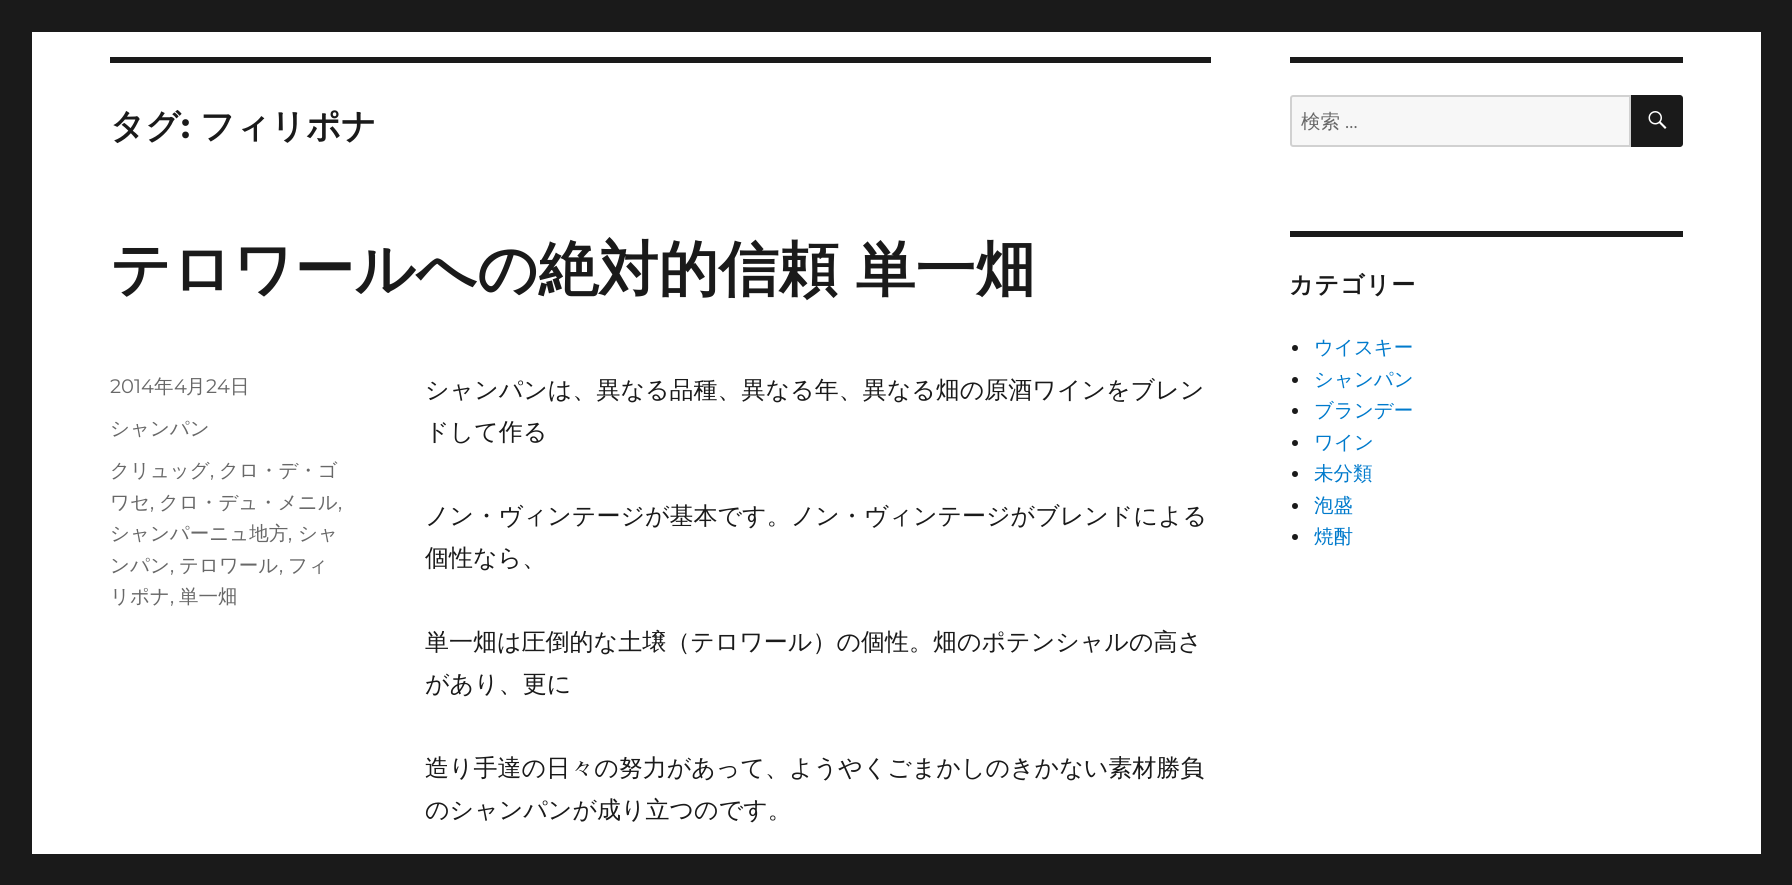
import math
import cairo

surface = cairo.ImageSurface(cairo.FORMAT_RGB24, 1792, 885)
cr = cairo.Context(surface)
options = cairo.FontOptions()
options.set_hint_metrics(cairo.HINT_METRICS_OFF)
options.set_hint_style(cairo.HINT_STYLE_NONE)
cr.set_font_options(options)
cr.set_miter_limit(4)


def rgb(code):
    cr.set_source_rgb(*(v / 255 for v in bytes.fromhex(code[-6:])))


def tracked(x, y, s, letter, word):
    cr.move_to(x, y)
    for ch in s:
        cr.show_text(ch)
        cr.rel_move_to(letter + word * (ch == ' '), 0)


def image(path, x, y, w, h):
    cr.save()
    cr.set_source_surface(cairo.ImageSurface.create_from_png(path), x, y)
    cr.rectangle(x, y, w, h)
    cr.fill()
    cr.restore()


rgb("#1a1a1a")
cr.paint()
for x, y, w, h, color in [
    (32, 32, 1729, 822, "#ffffff"),
    (110, 57, 1101, 6, "#1a1a1a"),
    (1290, 57, 393, 6, "#1a1a1a"),
]:
    rgb(color)
    cr.rectangle(x, y, w, h)
    cr.fill()
rgb("#f7f7f7")
cr.new_path()
cr.move_to(1293, 96)
cr.line_to(1630, 96)
cr.line_to(1630, 146)
cr.line_to(1293, 146)
cr.curve_to(1292, 146, 1291, 145, 1291, 144)
cr.line_to(1291, 98)
cr.curve_to(1291, 97, 1292, 96, 1293, 96)
cr.close_path()
cr.fill_preserve()
rgb("#d1d1d1")
cr.stroke()
rgb("#1a1a1a")
cr.new_path()
cr.move_to(1631, 95)
cr.line_to(1680, 95)
cr.curve_to(1681.5, 95, 1683, 96.5, 1683, 98)
cr.line_to(1683, 144)
cr.curve_to(1683, 145.5, 1681.5, 147, 1680, 147)
cr.line_to(1631, 147)
cr.close_path()
cr.fill()
image("img/1.png", 1648, 111, 19, 18)
cr.rectangle(1290, 231, 393, 6)
cr.fill()
cr.arc(1295, 348, 3, 0, 2 * math.pi)
cr.fill()
cr.arc(1295, 380, 3, 0, 2 * math.pi)
cr.fill()
cr.arc(1295, 411, 3, 0, 2 * math.pi)
cr.fill()
cr.arc(1295, 443, 3, 0, 2 * math.pi)
cr.fill()
cr.arc(1295, 474, 3, 0, 2 * math.pi)
cr.fill()
cr.arc(1295, 506, 3, 0, 2 * math.pi)
cr.fill()
cr.arc(1295, 537, 3, 0, 2 * math.pi)
cr.fill()
cr.select_font_face("WenQuanYi Zen Hei", cairo.FONT_SLANT_NORMAL, cairo.FONT_WEIGHT_BOLD)
cr.set_font_size(34.5)
cr.move_to(110, 138)
cr.show_text("タグ")
cr.select_font_face("Montserrat", cairo.FONT_SLANT_NORMAL, cairo.FONT_WEIGHT_BOLD)
cr.move_to(181, 138)
cr.show_text(":")
cr.select_font_face("WenQuanYi Zen Hei", cairo.FONT_SLANT_NORMAL, cairo.FONT_WEIGHT_BOLD)
cr.move_to(200, 138)
cr.show_text("フィリポナ")
cr.set_font_size(60)
tracked(110, 290, "テロワールへの絶対的信頼 単一畑", 0, -1)
cr.select_font_face("Montserrat")
cr.set_font_size(19.5)
rgb("#686868")
cr.move_to(110, 393)
cr.show_text("2014")
cr.select_font_face("WenQuanYi Zen Hei Medium")
cr.move_to(154, 393)
cr.show_text("年")
cr.select_font_face("Montserrat")
cr.move_to(174, 393)
cr.show_text("4")
cr.select_font_face("WenQuanYi Zen Hei Medium")
cr.move_to(186, 393)
cr.show_text("月")
cr.select_font_face("Montserrat")
cr.move_to(206, 393)
cr.show_text("24")
cr.select_font_face("WenQuanYi Zen Hei Medium")
for x, y, s in [
    (230, 393, "日"),
    (110, 435, "シャンパン"),
    (110, 477, "クリュッグ"),
]:
    cr.move_to(x, y)
    cr.show_text(s)
cr.select_font_face("Montserrat")
cr.move_to(210, 477)
cr.show_text(",")
cr.select_font_face("WenQuanYi Zen Hei Medium")
cr.move_to(219, 477)
cr.show_text("クロ・デ・ゴ")
cr.move_to(110, 509)
cr.show_text("ワセ")
cr.select_font_face("Montserrat")
cr.move_to(150, 509)
cr.show_text(",")
cr.select_font_face("WenQuanYi Zen Hei Medium")
cr.move_to(159, 509)
cr.show_text("クロ・デュ・メニル")
cr.select_font_face("Montserrat")
cr.move_to(338, 509)
cr.show_text(",")
cr.select_font_face("WenQuanYi Zen Hei Medium")
cr.move_to(110, 540)
cr.show_text("シャンパーニュ地方")
cr.select_font_face("Montserrat")
cr.move_to(288, 540)
cr.show_text(",")
cr.select_font_face("WenQuanYi Zen Hei Medium")
cr.move_to(298, 540)
cr.show_text("シャ")
cr.move_to(110, 572)
cr.show_text("ンパン")
cr.select_font_face("Montserrat")
cr.move_to(170, 572)
cr.show_text(",")
cr.select_font_face("WenQuanYi Zen Hei Medium")
cr.move_to(179, 572)
cr.show_text("テロワール")
cr.select_font_face("Montserrat")
cr.move_to(279, 572)
cr.show_text(",")
cr.select_font_face("WenQuanYi Zen Hei Medium")
cr.move_to(288, 572)
cr.show_text("フィ")
cr.move_to(110, 603)
cr.show_text("リポナ")
cr.select_font_face("Montserrat")
cr.move_to(170, 603)
cr.show_text(",")
cr.select_font_face("WenQuanYi Zen Hei Medium")
cr.move_to(179, 603)
cr.show_text("単一畑")
cr.set_font_size(24)
rgb("#1a1a1a")
for x, y, s in [
    (425, 398, "シャンパンは、異なる品種、異なる年、異なる畑の原酒ワインをブレン"),
    (425, 440, "ドして作る"),
    (425, 524, "ノン・ヴィンテージが基本です。ノン・ヴィンテージがブレンドによる"),
    (425, 566, "個性なら、"),
    (425, 650, "単一畑は圧倒的な土壌（テロワール）の個性。畑のポテンシャルの高さ"),
    (425, 692, "があり、更に"),
    (425, 776, "造り手達の日々の努力があって、ようやくごまかしのきかない素材勝負"),
    (425, 818, "のシャンパンが成り立つのです。"),
]:
    cr.move_to(x, y)
    cr.show_text(s)
cr.set_font_size(19.5)
rgb("#686868")
cr.move_to(1301, 128)
cr.show_text("検索")
cr.select_font_face("Montserrat")
cr.move_to(1345, 128)
cr.show_text("…")
cr.select_font_face("WenQuanYi Zen Hei", cairo.FONT_SLANT_NORMAL, cairo.FONT_WEIGHT_BOLD)
cr.set_font_size(24)
rgb("#1a1a1a")
tracked(1289, 293, "カテゴリー", 1, 0)
cr.select_font_face("WenQuanYi Zen Hei Medium")
cr.set_font_size(19.5)
rgb("#007acc")
for x, y, s in [
    (1314, 354, "ウイスキー"),
    (1314, 386, "シャンパン"),
    (1314, 417, "ブランデー"),
    (1314, 449, "ワイン"),
    (1314, 480, "未分類"),
    (1314, 512, "泡盛"),
    (1314, 543, "焼酎"),
]:
    cr.move_to(x, y)
    cr.show_text(s)
surface.write_to_png("page.png")
